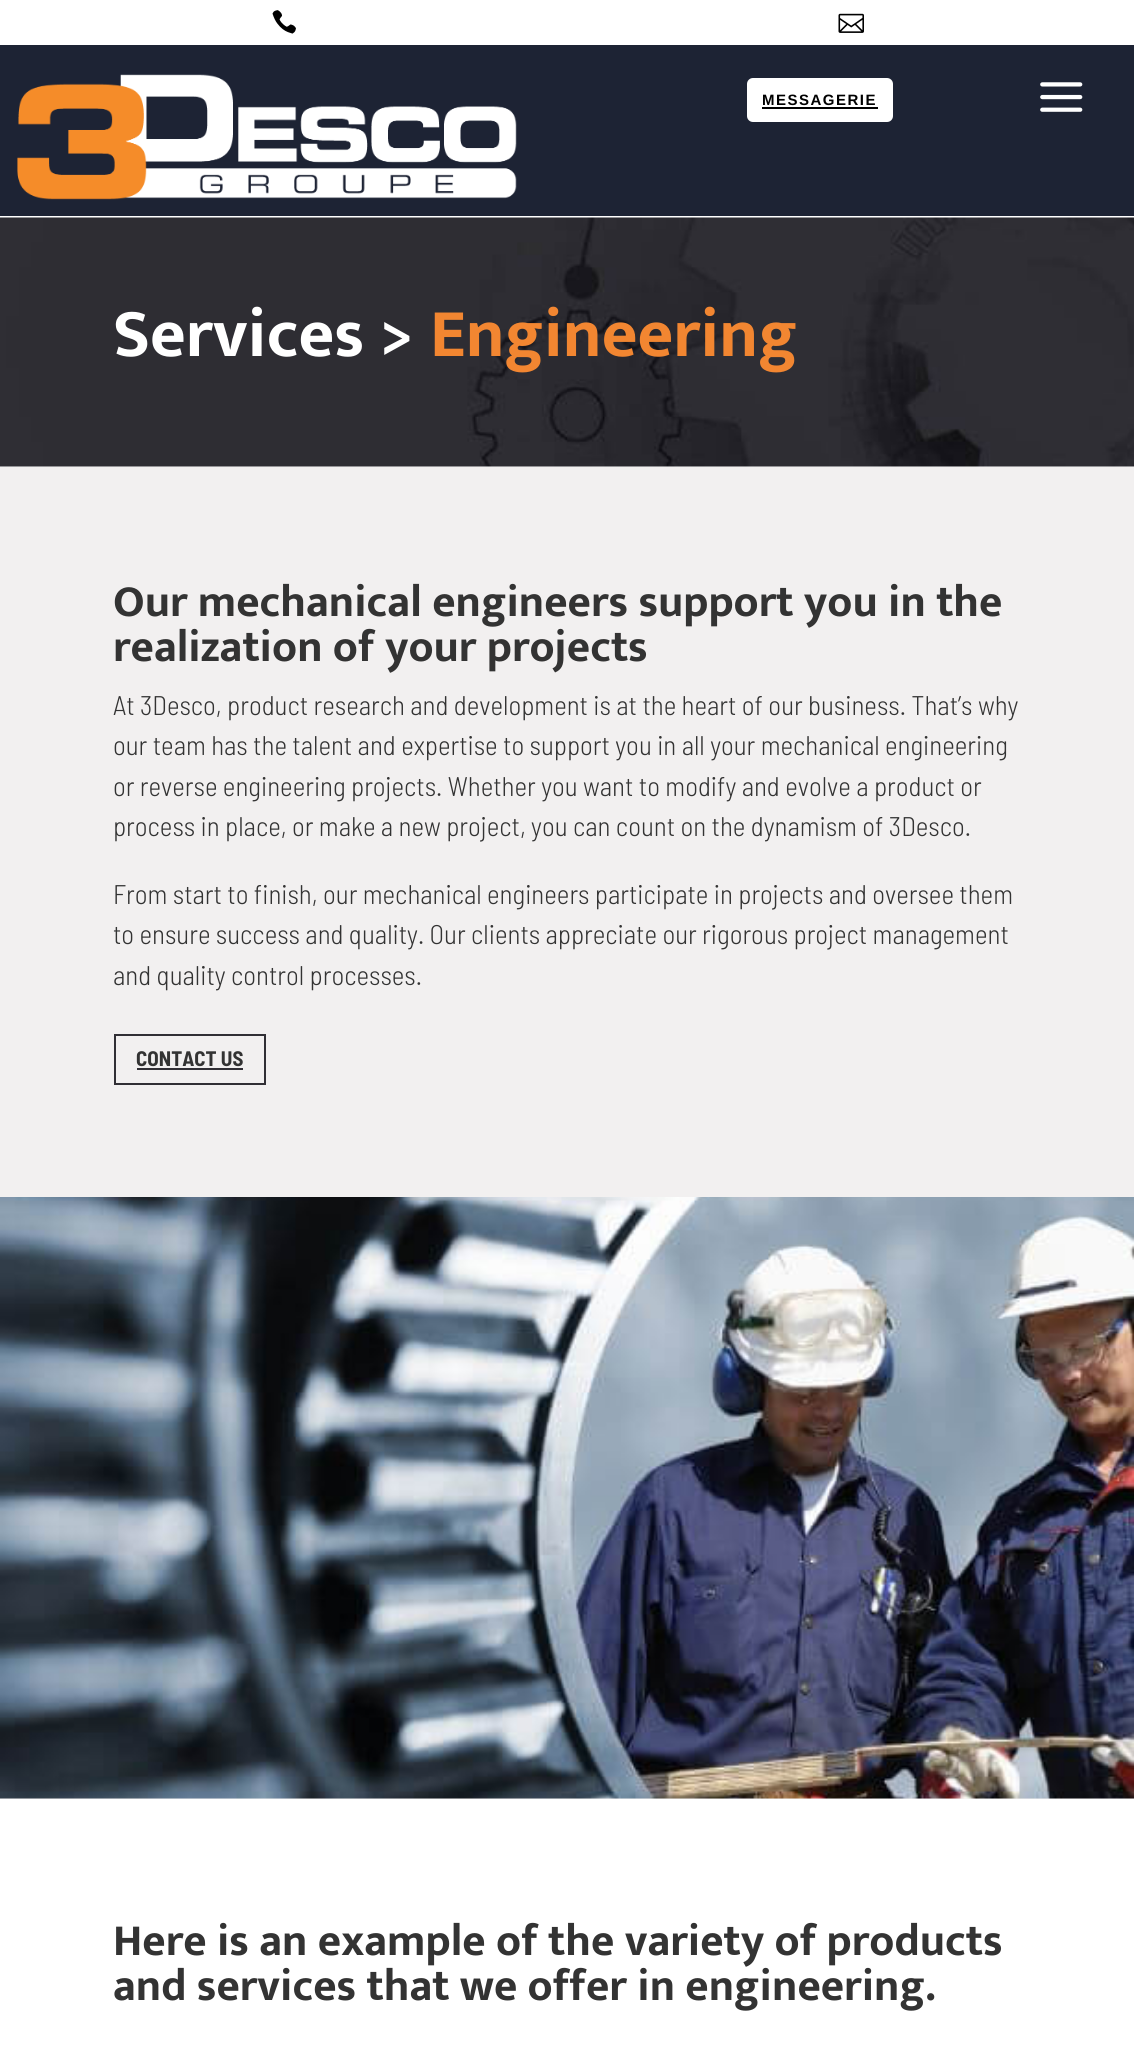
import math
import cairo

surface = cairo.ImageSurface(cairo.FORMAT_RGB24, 1134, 2067)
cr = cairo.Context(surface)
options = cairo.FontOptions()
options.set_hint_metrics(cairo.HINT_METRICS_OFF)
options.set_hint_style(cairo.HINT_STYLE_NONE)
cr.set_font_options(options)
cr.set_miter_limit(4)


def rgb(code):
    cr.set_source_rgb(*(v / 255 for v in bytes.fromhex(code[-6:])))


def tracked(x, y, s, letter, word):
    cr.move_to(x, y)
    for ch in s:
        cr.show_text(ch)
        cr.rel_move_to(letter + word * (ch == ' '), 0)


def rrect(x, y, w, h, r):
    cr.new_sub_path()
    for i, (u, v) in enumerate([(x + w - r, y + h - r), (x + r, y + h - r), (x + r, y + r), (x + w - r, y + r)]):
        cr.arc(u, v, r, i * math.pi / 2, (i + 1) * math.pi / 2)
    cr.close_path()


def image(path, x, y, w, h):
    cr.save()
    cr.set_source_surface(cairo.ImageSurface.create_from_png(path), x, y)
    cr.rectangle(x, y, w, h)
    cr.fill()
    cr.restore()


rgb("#ffffff")
cr.paint()
image("img/1.png", 272, 10, 24, 24)
image("img/2.png", 838, 13, 26, 20)
rgb("#1d2334")
cr.rectangle(0, 45, 1134, 171)
cr.fill()
image("img/3.png", 17, 74, 500, 126)
rgb("#ffffff")
rrect(747, 78, 146, 44, 6)
cr.fill()
rgb("#000000")
cr.rectangle(762, 107, 116, 2)
cr.fill()
image("img/4.png", 1040, 82, 43, 30)
image("img/5.png", 0, 217, 1134, 250)
rgb("#f2f0f0")
cr.rectangle(0, 467, 1134, 1332)
cr.fill()
cr.rectangle(115, 1035, 150, 49)
rgb("#312f35")
cr.stroke()
cr.rectangle(137, 1068, 106, 2)
cr.fill()
image("img/6.png", 0, 1197, 1134, 602)
cr.select_font_face("Liberation Sans", cairo.FONT_SLANT_NORMAL, cairo.FONT_WEIGHT_BOLD)
cr.set_font_size(15)
rgb("#000000")
tracked(762, 105, "MESSAGERIE", 1.5, 0)
cr.select_font_face("Mukta", cairo.FONT_SLANT_NORMAL, cairo.FONT_WEIGHT_BOLD)
cr.set_font_size(69)
rgb("#ffffff")
cr.move_to(113, 356)
cr.show_text("Services >")
rgb("#f28631")
cr.move_to(430, 356)
cr.show_text("Engineering")
cr.set_font_size(45)
rgb("#333333")
cr.move_to(113, 616)
cr.show_text("Our mechanical engineers support you in the")
cr.move_to(113, 661)
cr.show_text("realization of your projects")
cr.select_font_face("Barlow Semi Condensed Light")
cr.set_font_size(27)
for x, y, s in [
    (113, 715, "At 3Desco, product research and development is at the heart of our business. That’s why"),
    (113, 755, "our team has the talent and expertise to support you in all your mechanical engineering"),
    (113, 796, "or reverse engineering projects. Whether you want to modify and evolve a product or"),
    (113, 836, "process in place, or make a new project, you can count on the dynamism of 3Desco."),
    (113, 904, "From start to finish, our mechanical engineers participate in projects and oversee them"),
    (113, 944, "to ensure success and quality. Our clients appreciate our rigorous project management"),
    (113, 985, "and quality control processes."),
]:
    cr.move_to(x, y)
    cr.show_text(s)
cr.select_font_face("Barlow Semi Condensed", cairo.FONT_SLANT_NORMAL, cairo.FONT_WEIGHT_BOLD)
cr.set_font_size(21)
cr.move_to(136, 1066)
cr.show_text("CONTACT US")
cr.select_font_face("Mukta", cairo.FONT_SLANT_NORMAL, cairo.FONT_WEIGHT_BOLD)
cr.set_font_size(45)
cr.move_to(113, 1955)
cr.show_text("Here is an example of the variety of products")
cr.move_to(113, 2000)
cr.show_text("and services that we offer in engineering.")
surface.write_to_png("page.png")
